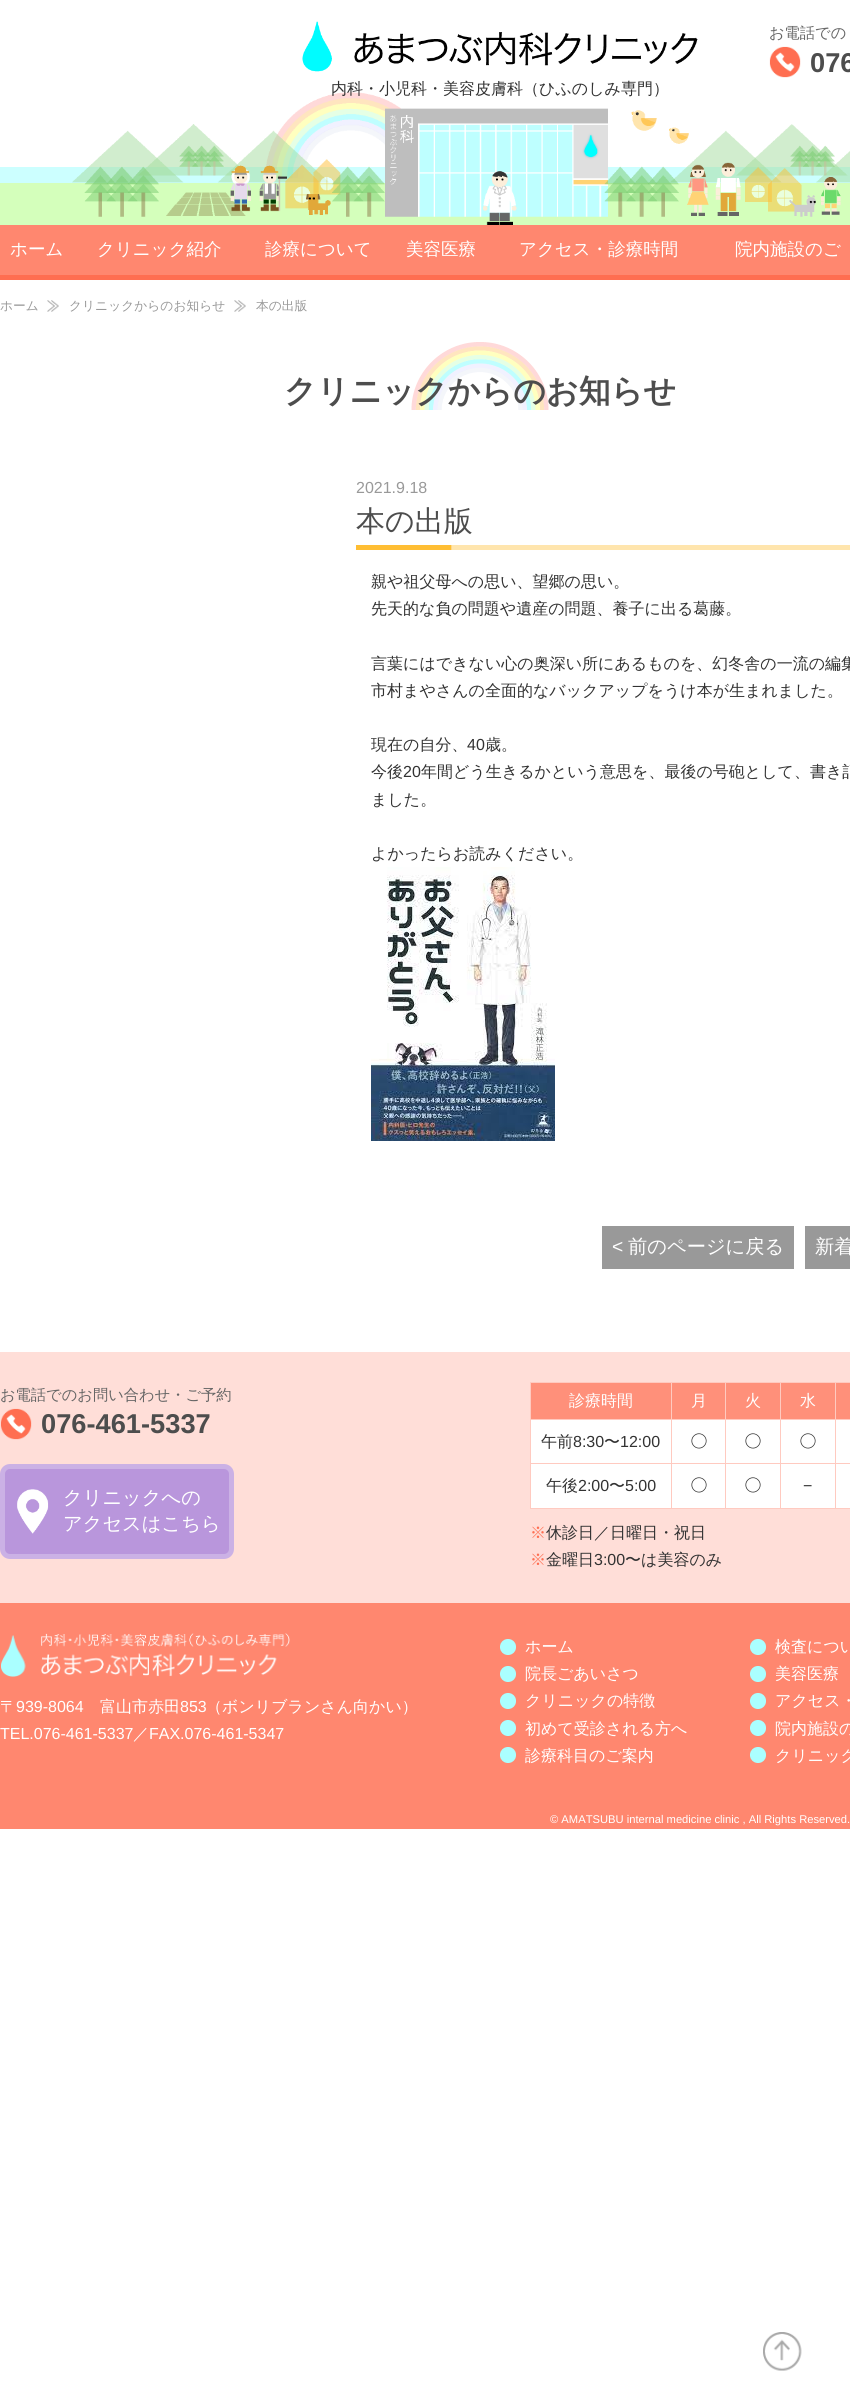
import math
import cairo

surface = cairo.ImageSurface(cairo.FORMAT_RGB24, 850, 2395)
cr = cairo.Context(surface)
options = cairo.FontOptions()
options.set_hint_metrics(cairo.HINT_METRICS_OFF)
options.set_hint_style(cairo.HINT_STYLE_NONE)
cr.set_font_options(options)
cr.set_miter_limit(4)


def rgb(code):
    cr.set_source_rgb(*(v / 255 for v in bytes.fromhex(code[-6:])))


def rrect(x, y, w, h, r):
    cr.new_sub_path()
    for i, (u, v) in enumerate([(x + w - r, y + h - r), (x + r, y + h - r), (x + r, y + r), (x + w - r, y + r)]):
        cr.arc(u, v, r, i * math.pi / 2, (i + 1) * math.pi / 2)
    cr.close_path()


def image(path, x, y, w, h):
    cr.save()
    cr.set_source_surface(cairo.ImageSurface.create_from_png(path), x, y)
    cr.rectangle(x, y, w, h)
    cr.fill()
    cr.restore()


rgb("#ffffff")
cr.paint()
image("img/1.png", 0, 167, 850, 58)
image("img/2.png", 72, 92, 778, 133)
image("img/3.png", 302, 21, 396, 51)
image("img/4.png", 769, 46, 32, 32)
rgb("#ff876f")
cr.rectangle(0, 225, 850, 50)
cr.fill()
rgb("#ff6e51")
cr.rectangle(0, 275, 850, 5)
cr.fill()
image("img/5.png", 47, 300, 12, 12)
image("img/5.png", 234, 300, 12, 12)
image("img/6.png", 411, 342, 138, 68)
image("img/7.png", 356, 545, 494, 5)
image("img/8.png", 371, 867, 184, 274)
for x, y, w, h, color in [
    (602, 1226, 192, 43, "#999999"),
    (805, 1226, 45, 43, "#999999"),
    (0, 1603, 850, 226, "#ff876f"),
    (0, 1352, 850, 251, "#ffded8"),
]:
    rgb(color)
    cr.rectangle(x, y, w, h)
    cr.fill()
image("img/9.png", 0, 1408, 32, 32)
rgb("#b996dc")
rrect(2.5, 1466.5, 229, 90, 7.5)
cr.fill_preserve()
rgb("#cbb1e5")
cr.set_line_width(5)
cr.stroke()
image("img/10.png", 17, 1489, 32, 45)
for x, y, w, h, color in [
    (530, 1382, 320, 1, "#ffcac0"),
    (530, 1382, 1, 127, "#ffcac0"),
    (531, 1383, 140, 36, "#ff907a"),
    (835, 1508, 15, 1, "#ffcac0"),
    (835, 1463, 1, 46, "#ffcac0"),
    (835, 1463, 15, 1, "#ffcac0"),
    (835, 1419, 1, 45, "#ffcac0"),
    (835, 1419, 15, 1, "#ffcac0"),
    (835, 1382, 1, 38, "#ffcac0"),
    (780, 1508, 56, 1, "#ffcac0"),
    (780, 1463, 1, 46, "#ffcac0"),
    (780, 1463, 56, 1, "#ffcac0"),
    (780, 1419, 1, 45, "#ffcac0"),
    (780, 1419, 56, 1, "#ffcac0"),
    (780, 1382, 1, 38, "#ffcac0"),
    (725, 1508, 56, 1, "#ffcac0"),
    (725, 1463, 1, 46, "#ffcac0"),
    (725, 1463, 56, 1, "#ffcac0"),
    (725, 1419, 1, 45, "#ffcac0"),
    (725, 1419, 56, 1, "#ffcac0"),
    (725, 1382, 1, 38, "#ffcac0"),
    (671, 1508, 55, 1, "#ffcac0"),
    (671, 1463, 1, 46, "#ffcac0"),
    (671, 1463, 55, 1, "#ffcac0"),
    (671, 1419, 1, 45, "#ffcac0"),
    (671, 1419, 55, 1, "#ffcac0"),
    (671, 1382, 1, 38, "#ffcac0"),
    (530, 1419, 142, 1, "#ffcac0"),
    (672, 1383, 53, 36, "#ff907a"),
    (726, 1383, 54, 36, "#ff907a"),
    (781, 1383, 54, 36, "#ff907a"),
    (836, 1383, 14, 36, "#ff907a"),
    (531, 1420, 140, 43, "#ffffff"),
    (530, 1463, 142, 1, "#ffcac0"),
    (672, 1420, 53, 43, "#ffffff"),
    (726, 1420, 54, 43, "#ffffff"),
    (781, 1420, 54, 43, "#ffffff"),
    (836, 1420, 14, 43, "#ffffff"),
    (531, 1464, 140, 44, "#ffffff"),
    (530, 1508, 142, 1, "#ffcac0"),
    (672, 1464, 53, 44, "#ffffff"),
    (726, 1464, 54, 44, "#ffffff"),
    (781, 1464, 54, 44, "#ffffff"),
    (836, 1464, 14, 44, "#ffffff"),
]:
    rgb(color)
    cr.rectangle(x, y, w, h)
    cr.fill()
image("img/11.png", 1, 1633, 289, 44)
image("img/12.png", 500, 1639, 16, 16)
image("img/12.png", 500, 1666, 16, 16)
image("img/12.png", 500, 1693, 16, 16)
image("img/12.png", 500, 1720, 16, 16)
image("img/12.png", 500, 1747, 16, 16)
image("img/12.png", 750, 1639, 16, 16)
image("img/12.png", 750, 1666, 16, 16)
image("img/12.png", 750, 1693, 16, 16)
image("img/12.png", 750, 1720, 16, 16)
image("img/12.png", 750, 1747, 16, 16)
image("img/13.png", 763, 2332, 39, 39)
cr.select_font_face("WenQuanYi Zen Hei Medium")
cr.set_font_size(15.25)
rgb("#666666")
cr.move_to(769, 38)
cr.show_text("お電話での")
cr.select_font_face("Liberation Sans", cairo.FONT_SLANT_NORMAL, cairo.FONT_WEIGHT_BOLD)
cr.set_font_size(27.25)
rgb("#4d4d4d")
cr.move_to(810, 72)
cr.show_text("076")
cr.select_font_face("WenQuanYi Zen Hei Medium")
cr.set_font_size(16)
rgb("#323232")
cr.move_to(331, 94)
cr.show_text("内科・小児科・美容皮膚科（ひふのしみ専門）")
cr.set_font_size(17.5)
rgb("#ffffff")
for x, y, s in [
    (10, 255, "ホーム"),
    (97, 255, "クリニック紹介"),
    (265, 255, "診療について"),
    (406, 255, "美容医療"),
    (519, 255, "アクセス・診療時間"),
    (735, 255, "院内施設のご"),
]:
    cr.move_to(x, y)
    cr.show_text(s)
cr.set_font_size(12.75)
rgb("#999999")
for x, y, s in [
    (0, 310, "ホーム"),
    (69, 310, "クリニックからのお知らせ"),
    (256, 310, "本の出版"),
]:
    cr.move_to(x, y)
    cr.show_text(s)
cr.select_font_face("WenQuanYi Zen Hei", cairo.FONT_SLANT_NORMAL, cairo.FONT_WEIGHT_BOLD)
cr.set_font_size(32)
rgb("#4d4d4d")
cr.move_to(284, 402)
cr.show_text("クリニックからのお知らせ")
cr.select_font_face("Liberation Sans")
cr.set_font_size(16)
rgb("#999999")
cr.move_to(356, 493)
cr.show_text("2021.9.18")
cr.select_font_face("WenQuanYi Zen Hei Medium")
cr.set_font_size(29)
rgb("#4d4d4d")
cr.move_to(356, 531)
cr.show_text("本の出版")
cr.set_font_size(16)
rgb("#323232")
for x, y, s in [
    (371, 587, "親や祖父母への思い、望郷の思い。"),
    (371, 614, "先天的な負の問題や遺産の問題、養子に出る葛藤。"),
    (371, 669, "言葉にはできない心の奥深い所にあるものを、幻冬舎の一流の編集"),
    (371, 696, "市村まやさんの全面的なバックアップをうけ本が生まれました。"),
    (371, 750, "現在の自分、"),
]:
    cr.move_to(x, y)
    cr.show_text(s)
cr.select_font_face("Liberation Sans")
cr.move_to(467, 750)
cr.show_text("40")
cr.select_font_face("WenQuanYi Zen Hei Medium")
cr.move_to(485, 750)
cr.show_text("歳。")
cr.move_to(371, 777)
cr.show_text("今後")
cr.select_font_face("Liberation Sans")
cr.move_to(403, 777)
cr.show_text("20")
cr.select_font_face("WenQuanYi Zen Hei Medium")
for x, y, s in [
    (421, 777, "年間どう生きるかという意思を、最後の号砲として、書き記"),
    (371, 805, "ました。"),
    (371, 859, "よかったらお読みください。"),
]:
    cr.move_to(x, y)
    cr.show_text(s)
cr.select_font_face("Liberation Sans")
cr.set_font_size(19.25)
rgb("#ffffff")
cr.move_to(612, 1253)
cr.show_text("<")
cr.select_font_face("WenQuanYi Zen Hei Medium")
cr.move_to(628, 1253)
cr.show_text("前のページに戻る")
cr.move_to(815, 1253)
cr.show_text("新着")
cr.set_font_size(15.25)
rgb("#666666")
cr.move_to(0, 1400)
cr.show_text("お電話でのお問い合わせ・ご予約")
cr.select_font_face("Liberation Sans", cairo.FONT_SLANT_NORMAL, cairo.FONT_WEIGHT_BOLD)
cr.set_font_size(27.25)
rgb("#4d4d4d")
cr.move_to(41, 1433)
cr.show_text("076-461-5337")
cr.select_font_face("WenQuanYi Zen Hei Medium")
cr.set_font_size(19.25)
rgb("#ffffff")
cr.move_to(63, 1504)
cr.show_text("クリニックへの")
cr.move_to(63, 1530)
cr.show_text("アクセスはこちら")
cr.set_font_size(16)
for x, y, s in [
    (569, 1406, "診療時間"),
    (691, 1406, "月"),
    (745, 1406, "火"),
    (800, 1406, "水"),
]:
    cr.move_to(x, y)
    cr.show_text(s)
rgb("#323232")
cr.move_to(541, 1447)
cr.show_text("午前")
cr.select_font_face("Liberation Sans")
cr.move_to(573, 1447)
cr.show_text("8:30")
cr.select_font_face("WenQuanYi Zen Hei Medium")
cr.move_to(604, 1447)
cr.show_text("〜")
cr.select_font_face("Liberation Sans")
cr.move_to(620, 1447)
cr.show_text("12:00")
cr.select_font_face("IPAPGothic")
for x, y, s in [
    (691, 1447, "◯"),
    (745, 1447, "◯"),
    (800, 1447, "◯"),
]:
    cr.move_to(x, y)
    cr.show_text(s)
cr.select_font_face("WenQuanYi Zen Hei Medium")
cr.move_to(546, 1491)
cr.show_text("午後")
cr.select_font_face("Liberation Sans")
cr.move_to(578, 1491)
cr.show_text("2:00")
cr.select_font_face("WenQuanYi Zen Hei Medium")
cr.move_to(609, 1491)
cr.show_text("〜")
cr.select_font_face("Liberation Sans")
cr.move_to(625, 1491)
cr.show_text("5:00")
cr.select_font_face("IPAPGothic")
cr.move_to(691, 1491)
cr.show_text("◯")
cr.move_to(745, 1491)
cr.show_text("◯")
cr.select_font_face("Liberation Sans")
cr.move_to(803, 1491)
cr.show_text("−")
cr.select_font_face("WenQuanYi Zen Hei Medium")
rgb("#ff6e51")
cr.move_to(530, 1538)
cr.show_text("※")
rgb("#323232")
cr.move_to(546, 1538)
cr.show_text("休診日／日曜日・祝日")
rgb("#ff6e51")
cr.move_to(530, 1565)
cr.show_text("※")
rgb("#323232")
cr.move_to(546, 1565)
cr.show_text("金曜日")
cr.select_font_face("Liberation Sans")
cr.move_to(594, 1565)
cr.show_text("3:00")
cr.select_font_face("WenQuanYi Zen Hei Medium")
cr.move_to(625, 1565)
cr.show_text("〜は美容のみ")
rgb("#ffffff")
cr.move_to(0, 1712)
cr.show_text("〒")
cr.select_font_face("Liberation Sans")
cr.move_to(16, 1712)
cr.show_text("939-8064")
cr.select_font_face("WenQuanYi Zen Hei Medium")
cr.move_to(100, 1712)
cr.show_text("富山市赤田")
cr.select_font_face("Liberation Sans")
cr.move_to(180, 1712)
cr.show_text("853")
cr.select_font_face("WenQuanYi Zen Hei Medium")
cr.move_to(206, 1712)
cr.show_text("（ボンリブランさん向かい）")
cr.select_font_face("Liberation Sans")
cr.move_to(0, 1739)
cr.show_text("TEL.076-461-5337")
cr.select_font_face("WenQuanYi Zen Hei Medium")
cr.move_to(133, 1739)
cr.show_text("／")
cr.select_font_face("Liberation Sans")
cr.move_to(149, 1739)
cr.show_text("FAX.076-461-5347")
cr.select_font_face("WenQuanYi Zen Hei Medium")
for x, y, s in [
    (525, 1652, "ホーム"),
    (525, 1679, "院長ごあいさつ"),
    (525, 1706, "クリニックの特徴"),
    (525, 1734, "初めて受診される方へ"),
    (525, 1761, "診療科目のご案内"),
    (775, 1652, "検査につい"),
    (775, 1679, "美容医療"),
    (775, 1706, "アクセス・"),
    (775, 1734, "院内施設の"),
    (775, 1761, "クリニック"),
]:
    cr.move_to(x, y)
    cr.show_text(s)
cr.select_font_face("Liberation Sans")
cr.set_font_size(11.2)
cr.move_to(550, 1823)
cr.show_text("© AMATSUBU internal medicine clinic , All Rights Reserved.")
surface.write_to_png("page.png")
